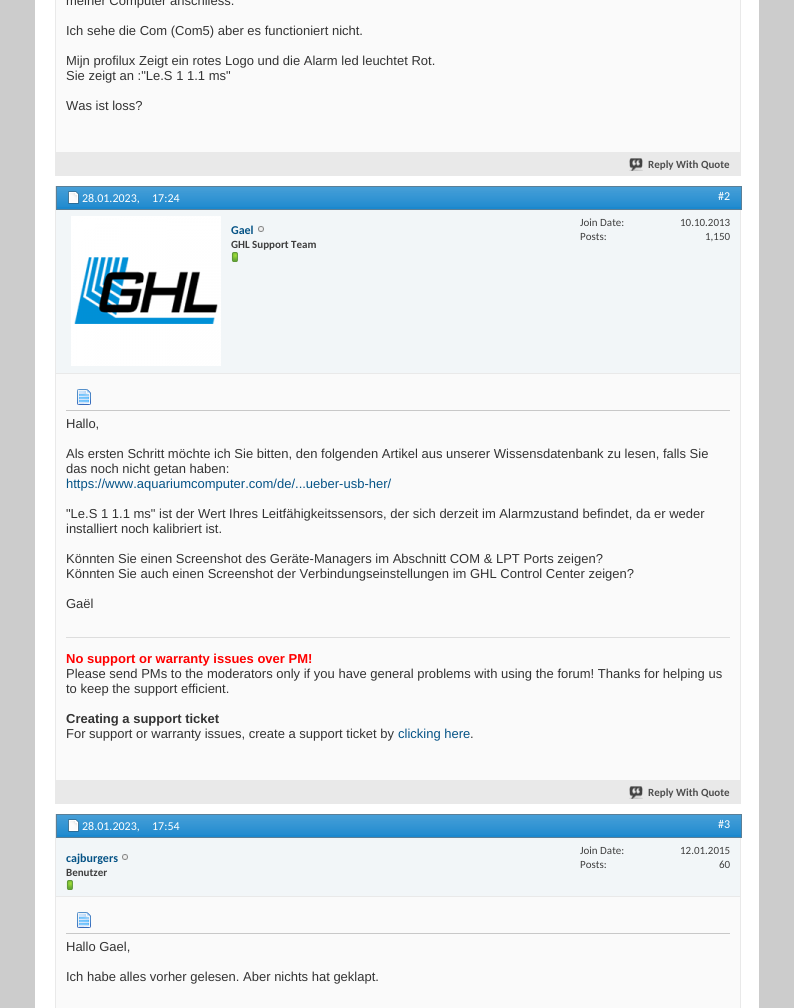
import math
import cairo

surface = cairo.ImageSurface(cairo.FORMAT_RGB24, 794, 1008)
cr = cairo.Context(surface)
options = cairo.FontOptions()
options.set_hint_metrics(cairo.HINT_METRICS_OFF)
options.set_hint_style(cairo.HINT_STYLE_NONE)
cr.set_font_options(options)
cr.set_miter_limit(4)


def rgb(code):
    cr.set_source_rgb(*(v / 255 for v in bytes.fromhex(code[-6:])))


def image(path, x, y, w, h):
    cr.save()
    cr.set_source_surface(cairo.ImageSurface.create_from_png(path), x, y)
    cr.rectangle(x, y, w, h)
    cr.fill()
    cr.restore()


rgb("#cccccc")
cr.paint()
rgb("#ffffff")
cr.rectangle(35, 0, 724, 1008)
cr.fill()
cr.rectangle(55.5, -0.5, 685, 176)
rgb("#e9e9e9")
cr.set_line_width(1)
cr.stroke()
rgb("#fafafa")
cr.rectangle(56, 0, 684, 152)
cr.fill()
rgb("#e9e9e9")
cr.rectangle(56, 152, 684, 23)
cr.fill()
image("img/1.png", 629, 158, 14, 13)
cr.rectangle(55.5, 186.5, 685, 617)
cr.stroke()
rgb("#1b88ce")
cr.rectangle(57, 187, 684, 22)
cr.fill()
image("img/2.png", 57, 187, 684, 20)
cr.rectangle(56.5, 186.5, 685, 23)
rgb("#5a7f97")
cr.stroke()
image("img/3.png", 68, 191, 11, 13)
rgb("#f2f6f8")
cr.rectangle(56, 210, 684, 163)
cr.fill()
rgb("#e9e9e9")
cr.rectangle(56, 373, 684, 1)
cr.fill()
image("img/4.png", 71, 216, 150, 150)
image("img/5.png", 258, 226, 6, 6)
image("img/6.png", 231, 252, 7, 10)
rgb("#fafafa")
cr.rectangle(56, 374, 684, 406)
cr.fill()
rgb("#c8c8c8")
cr.rectangle(66, 410, 664, 1)
cr.fill()
image("img/7.png", 77, 389, 14, 16)
rgb("#dddddd")
cr.rectangle(66, 637, 664, 1)
cr.fill()
rgb("#e9e9e9")
cr.rectangle(56, 780, 684, 23)
cr.fill()
image("img/1.png", 629, 786, 14, 13)
cr.rectangle(55.5, 814.5, 685, 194)
cr.stroke()
rgb("#1b88ce")
cr.rectangle(57, 815, 684, 22)
cr.fill()
image("img/2.png", 57, 815, 684, 20)
cr.rectangle(56.5, 814.5, 685, 23)
rgb("#5a7f97")
cr.stroke()
image("img/3.png", 68, 819, 11, 13)
rgb("#f2f6f8")
cr.rectangle(56, 838, 684, 58)
cr.fill()
rgb("#e9e9e9")
cr.rectangle(56, 896, 684, 1)
cr.fill()
image("img/5.png", 122, 854, 6, 6)
image("img/6.png", 66, 880, 7, 10)
rgb("#fafafa")
cr.rectangle(56, 897, 684, 111)
cr.fill()
rgb("#c8c8c8")
cr.rectangle(66, 933, 664, 1)
cr.fill()
image("img/7.png", 77, 912, 14, 16)
cr.select_font_face("Liberation Sans")
cr.set_font_size(13)
rgb("#333333")
for x, y, s in [
    (66, 5, "meiner Computer anschliess."),
    (66, 35, "Ich sehe die Com (Com5) aber es functioniert nicht."),
    (66, 65, "Mijn profilux Zeigt ein rotes Logo und die Alarm led leuchtet Rot."),
    (66, 80, "Sie zeigt an :\"Le.S 1 1.1 ms\""),
    (66, 110, "Was ist loss?"),
]:
    cr.move_to(x, y)
    cr.show_text(s)
cr.select_font_face("Carlito", cairo.FONT_SLANT_NORMAL, cairo.FONT_WEIGHT_BOLD)
cr.set_font_size(11)
rgb("#4e4e4e")
cr.move_to(648, 168)
cr.show_text("Reply With Quote")
cr.select_font_face("Carlito")
cr.set_font_size(12)
rgb("#ffffff")
for x, y, s in [
    (82, 202, "28.01.2023,"),
    (152, 202, "17:24"),
    (718, 200, "#2"),
]:
    cr.move_to(x, y)
    cr.show_text(s)
cr.select_font_face("Carlito", cairo.FONT_SLANT_NORMAL, cairo.FONT_WEIGHT_BOLD)
rgb("#055386")
cr.move_to(231, 234)
cr.show_text("Gael")
cr.set_font_size(11)
rgb("#3e3e3e")
cr.move_to(231, 248)
cr.show_text("GHL Support Team")
cr.select_font_face("Carlito")
for x, y, s in [
    (580, 226, "Join Date:"),
    (680, 226, "10.10.2013"),
    (580, 240, "Posts:"),
    (705, 240, "1,150"),
]:
    cr.move_to(x, y)
    cr.show_text(s)
cr.select_font_face("Liberation Sans")
cr.set_font_size(13)
rgb("#333333")
for x, y, s in [
    (66, 428, "Hallo,"),
    (66, 458, "Als ersten Schritt möchte ich Sie bitten, den folgenden Artikel aus unserer Wissensdatenbank zu lesen, falls Sie"),
    (66, 473, "das noch nicht getan haben:"),
]:
    cr.move_to(x, y)
    cr.show_text(s)
rgb("#055386")
cr.move_to(66, 488)
cr.show_text("https://www.aquariumcomputer.com/de/...ueber-usb-her/")
rgb("#333333")
for x, y, s in [
    (66, 518, "\"Le.S 1 1.1 ms\" ist der Wert Ihres Leitfähigkeitssensors, der sich derzeit im Alarmzustand befindet, da er weder"),
    (66, 533, "installiert noch kalibriert ist."),
    (66, 563, "Könnten Sie einen Screenshot des Geräte-Managers im Abschnitt COM & LPT Ports zeigen?"),
    (66, 578, "Könnten Sie auch einen Screenshot der Verbindungseinstellungen im GHL Control Center zeigen?"),
    (66, 608, "Gaël"),
]:
    cr.move_to(x, y)
    cr.show_text(s)
cr.select_font_face("Liberation Sans", cairo.FONT_SLANT_NORMAL, cairo.FONT_WEIGHT_BOLD)
rgb("#ff0000")
cr.move_to(66, 663)
cr.show_text("No support or warranty issues over PM!")
cr.select_font_face("Liberation Sans")
rgb("#333333")
cr.move_to(66, 678)
cr.show_text("Please send PMs to the moderators only if you have general problems with using the forum! Thanks for helping us")
cr.move_to(66, 693)
cr.show_text("to keep the support efficient.")
cr.select_font_face("Liberation Sans", cairo.FONT_SLANT_NORMAL, cairo.FONT_WEIGHT_BOLD)
cr.move_to(66, 723)
cr.show_text("Creating a support ticket")
cr.select_font_face("Liberation Sans")
cr.move_to(66, 738)
cr.show_text("For support or warranty issues, create a support ticket by")
rgb("#055386")
cr.move_to(398, 738)
cr.show_text("clicking here")
rgb("#333333")
cr.move_to(470, 738)
cr.show_text(".")
cr.select_font_face("Carlito", cairo.FONT_SLANT_NORMAL, cairo.FONT_WEIGHT_BOLD)
cr.set_font_size(11)
rgb("#4e4e4e")
cr.move_to(648, 796)
cr.show_text("Reply With Quote")
cr.select_font_face("Carlito")
cr.set_font_size(12)
rgb("#ffffff")
for x, y, s in [
    (82, 830, "28.01.2023,"),
    (152, 830, "17:54"),
    (718, 828, "#3"),
]:
    cr.move_to(x, y)
    cr.show_text(s)
cr.select_font_face("Carlito", cairo.FONT_SLANT_NORMAL, cairo.FONT_WEIGHT_BOLD)
rgb("#055386")
cr.move_to(66, 862)
cr.show_text("cajburgers")
cr.set_font_size(11)
rgb("#3e3e3e")
cr.move_to(66, 876)
cr.show_text("Benutzer")
cr.select_font_face("Carlito")
for x, y, s in [
    (580, 854, "Join Date:"),
    (680, 854, "12.01.2015"),
    (580, 868, "Posts:"),
    (719, 868, "60"),
]:
    cr.move_to(x, y)
    cr.show_text(s)
cr.select_font_face("Liberation Sans")
cr.set_font_size(13)
rgb("#333333")
cr.move_to(66, 951)
cr.show_text("Hallo Gael,")
cr.move_to(66, 981)
cr.show_text("Ich habe alles vorher gelesen. Aber nichts hat geklapt.")
surface.write_to_png("page.png")
